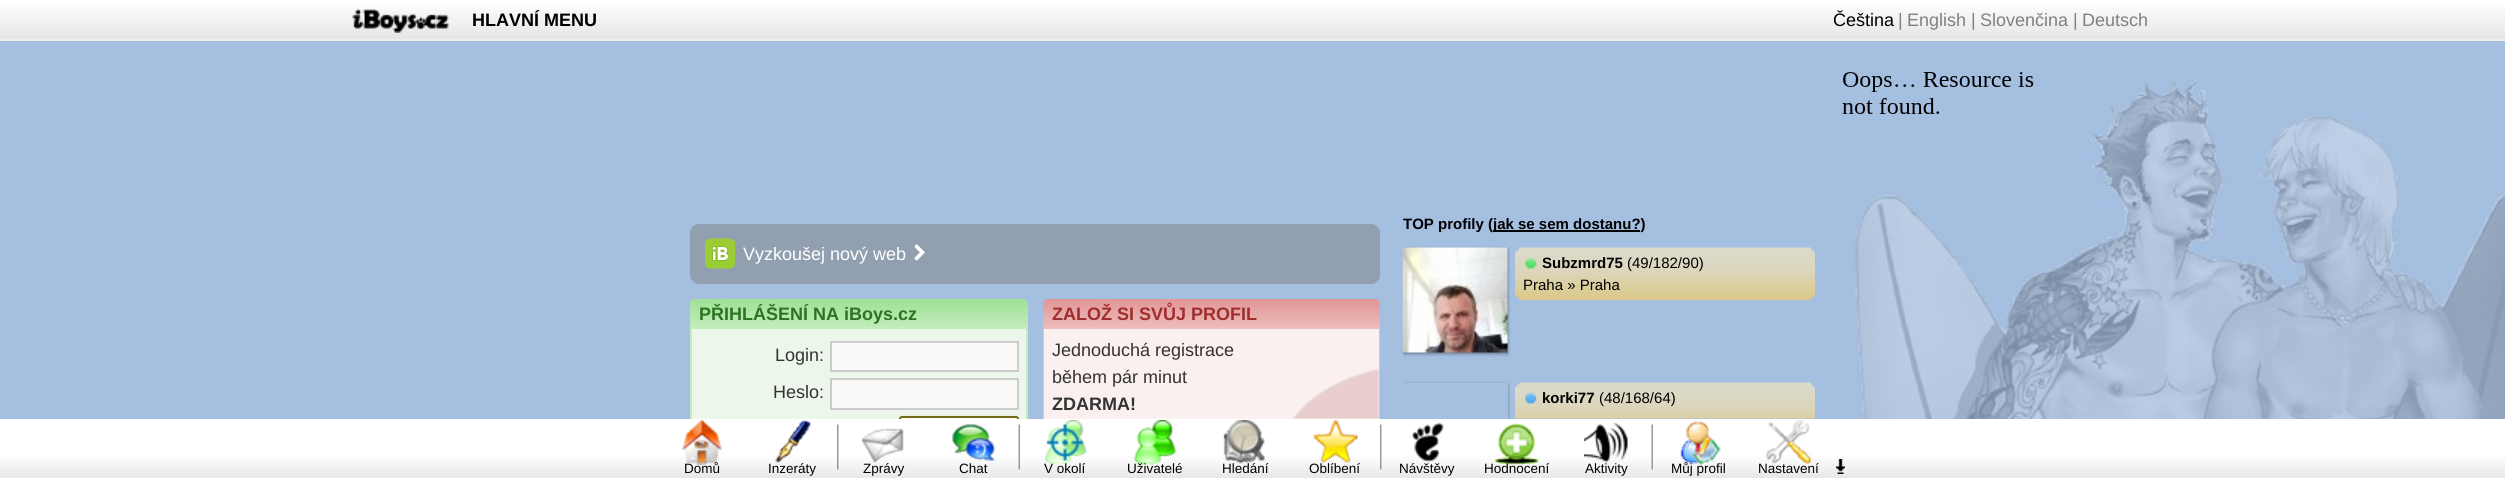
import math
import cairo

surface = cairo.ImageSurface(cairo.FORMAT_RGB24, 2505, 478)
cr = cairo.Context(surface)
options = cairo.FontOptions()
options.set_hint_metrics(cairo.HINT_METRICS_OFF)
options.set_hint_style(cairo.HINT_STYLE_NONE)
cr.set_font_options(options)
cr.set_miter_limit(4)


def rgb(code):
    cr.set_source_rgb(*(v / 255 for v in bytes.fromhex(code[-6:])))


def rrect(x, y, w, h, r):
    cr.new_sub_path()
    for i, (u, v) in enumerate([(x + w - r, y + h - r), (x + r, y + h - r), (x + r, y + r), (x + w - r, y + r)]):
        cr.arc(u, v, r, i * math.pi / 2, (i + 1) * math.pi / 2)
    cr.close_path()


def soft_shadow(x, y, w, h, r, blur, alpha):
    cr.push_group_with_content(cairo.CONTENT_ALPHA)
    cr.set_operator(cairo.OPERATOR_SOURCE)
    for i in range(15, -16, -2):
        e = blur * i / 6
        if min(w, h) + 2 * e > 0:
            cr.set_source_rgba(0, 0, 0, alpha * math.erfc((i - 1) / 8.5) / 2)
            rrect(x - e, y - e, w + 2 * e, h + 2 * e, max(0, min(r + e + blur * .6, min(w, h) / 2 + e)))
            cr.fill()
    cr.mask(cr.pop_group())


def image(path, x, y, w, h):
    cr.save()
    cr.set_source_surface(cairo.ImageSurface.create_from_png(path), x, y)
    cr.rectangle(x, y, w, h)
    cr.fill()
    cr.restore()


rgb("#a5bfe1")
cr.paint()
image("img/1.png", 1852, 75, 653, 344)
gradient = cairo.LinearGradient(1253, 0, 1253, 39)
gradient.add_color_stop_rgba(0, 1, 1, 1, 1)
gradient.add_color_stop_rgba(1, 0.902, 0.902, 0.902, 1)
cr.set_source(gradient)
cr.rectangle(0, 0, 2505, 39)
cr.fill()
rgb("#eeeeee")
cr.rectangle(0, 39, 2505, 2)
cr.fill()
image("img/2.png", 352, 9, 97, 24)
image("img/3.png", 1842, 72, 192, 42)
rgb("#929fb0")
rrect(690, 224, 690, 60, 9)
cr.fill()
image("img/4.png", 705, 238, 30, 31)
image("img/5.png", 914, 244, 11, 17)
gradient = cairo.LinearGradient(859, 299, 859, 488)
gradient.add_color_stop_rgba(0, 0.624, 0.882, 0.588, 1)
gradient.add_color_stop_rgba(0.16, 0.765, 0.929, 0.741, 1)
cr.set_source(gradient)
cr.new_path()
cr.move_to(695, 299)
cr.line_to(1023, 299)
cr.curve_to(1026, 299, 1028, 301, 1028, 304)
cr.line_to(1028, 419)
cr.line_to(690, 419)
cr.line_to(690, 304)
cr.curve_to(690, 301, 692, 299, 695, 299)
cr.close_path()
cr.fill()
rgb("#edf6ea")
cr.rectangle(692, 329, 334, 90)
cr.fill()
rgb("#f9f9f8")
cr.rectangle(831, 342, 187, 29)
cr.fill_preserve()
rgb("#cccccc")
cr.stroke()
rgb("#f9f9f8")
cr.rectangle(831, 379, 187, 30)
cr.fill_preserve()
rgb("#cccccc")
cr.stroke()
rgb("#000000")
soft_shadow(899, 417, 120, 32, 3, 1.5, 0.2)
cr.save()
rrect(899, 416, 120, 31, 3)
cr.clip()
gradient = cairo.LinearGradient(959, 417, 959, 446)
gradient.add_color_stop_rgba(0, 1, 1, 1, 1)
gradient.add_color_stop_rgba(1, 0.902, 0.875, 0.424, 1)
cr.set_source(gradient)
cr.rectangle(899, 417, 120, 2)
cr.fill()
cr.restore()
rrect(900, 417, 118, 29, 2)
rgb("#706b14")
cr.stroke()
gradient = cairo.LinearGradient(1211, 299, 1211, 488)
gradient.add_color_stop_rgba(0, 0.882, 0.588, 0.588, 1)
gradient.add_color_stop_rgba(0.16, 0.929, 0.741, 0.741, 1)
cr.set_source(gradient)
cr.new_path()
cr.move_to(1048, 299)
cr.line_to(1375, 299)
cr.curve_to(1378, 299, 1380, 301, 1380, 304)
cr.line_to(1380, 419)
cr.line_to(1043, 419)
cr.line_to(1043, 304)
cr.curve_to(1043, 301, 1045, 299, 1048, 299)
cr.close_path()
cr.fill()
rgb("#faf0ef")
cr.rectangle(1044, 329, 335, 90)
cr.fill()
image("img/6.png", 1292, 369, 87, 50)
rgb("#000000")
cr.rectangle(1493, 230, 147, 2)
cr.fill()
cr.save()
cr.rectangle(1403, 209, 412, 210)
cr.clip()
rgb("#000000")
soft_shadow(1403, 249, 105, 105, 0, 1.5, 0.35)
cr.restore()
image("img/7.png", 1402, 247, 106, 106)
image("img/8.png", 1515, 247, 300, 53)
image("img/9.png", 1525, 257, 12, 12)
cr.save()
cr.rectangle(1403, 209, 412, 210)
cr.clip()
cr.set_fill_rule(cairo.FILL_RULE_EVEN_ODD)
cr.new_path()
cr.move_to(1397, 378)
cr.line_to(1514, 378)
cr.line_to(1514, 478)
cr.line_to(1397, 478)
cr.close_path()
cr.move_to(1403, 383)
cr.line_to(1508, 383)
cr.line_to(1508, 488)
cr.line_to(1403, 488)
cr.close_path()
cr.clip()
rgb("#000000")
soft_shadow(1403, 384, 105, 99, 0, 1.5, 0.35)
cr.restore()
image("img/10.png", 1515, 382, 300, 37)
image("img/11.png", 1525, 392, 12, 12)
gradient = cairo.LinearGradient(1253, 418, 1253, 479)
gradient.add_color_stop_rgba(0.6, 1, 1, 1, 1)
gradient.add_color_stop_rgba(1, 0.902, 0.902, 0.902, 1)
cr.set_source(gradient)
cr.rectangle(0, 419, 2505, 59)
cr.fill()
image("img/12.png", 682, 420, 40, 45)
image("img/13.png", 775, 420, 36, 43)
image("img/14.png", 837, 424, 2, 46)
image("img/15.png", 861, 428, 43, 35)
image("img/16.png", 951, 424, 45, 37)
image("img/17.png", 1018, 424, 2, 46)
image("img/18.png", 1045, 420, 42, 45)
image("img/19.png", 1133, 420, 44, 45)
image("img/20.png", 1223, 420, 42, 45)
image("img/21.png", 1312, 420, 46, 44)
image("img/14.png", 1380, 424, 2, 46)
image("img/22.png", 1411, 422, 33, 41)
image("img/23.png", 1494, 423, 45, 42)
image("img/24.png", 1584, 422, 44, 41)
image("img/17.png", 1651, 424, 2, 46)
image("img/25.png", 1679, 421, 42, 44)
image("img/26.png", 1765, 420, 46, 45)
image("img/27.png", 1836, 459, 9, 15)
cr.select_font_face("Liberation Sans", cairo.FONT_SLANT_NORMAL, cairo.FONT_WEIGHT_BOLD)
cr.set_font_size(18)
rgb("#000000")
cr.move_to(472, 26)
cr.show_text("HLAVNÍ MENU")
cr.select_font_face("Liberation Sans")
cr.move_to(1833, 26)
cr.show_text("Čeština")
rgb("#808080")
for x, y, s in [
    (1898, 26, "|"),
    (1907, 26, "English"),
    (1971, 26, "|"),
    (1980, 26, "Slovenčina"),
    (2073, 26, "|"),
    (2082, 26, "Deutsch"),
]:
    cr.move_to(x, y)
    cr.show_text(s)
rgb("#ffffff")
cr.move_to(743, 260)
cr.show_text("Vyzkoušej nový web")
cr.select_font_face("Liberation Sans", cairo.FONT_SLANT_NORMAL, cairo.FONT_WEIGHT_BOLD)
rgb("#2c7421")
cr.move_to(699, 320)
cr.show_text("PŘIHLÁŠENÍ NA iBoys.cz")
cr.select_font_face("Liberation Sans")
rgb("#333333")
cr.move_to(775, 361)
cr.show_text("Login:")
cr.move_to(773, 398)
cr.show_text("Heslo:")
cr.select_font_face("Liberation Sans", cairo.FONT_SLANT_NORMAL, cairo.FONT_WEIGHT_BOLD)
rgb("#9f2e2d")
cr.move_to(1052, 320)
cr.show_text("ZALOŽ SI SVŮJ PROFIL")
cr.select_font_face("Liberation Sans")
rgb("#333333")
cr.move_to(1052, 356)
cr.show_text("Jednoduchá registrace")
cr.move_to(1052, 383)
cr.show_text("během pár minut")
cr.select_font_face("Liberation Sans", cairo.FONT_SLANT_NORMAL, cairo.FONT_WEIGHT_BOLD)
cr.move_to(1052, 410)
cr.show_text("ZDARMA!")
cr.save()
cr.rectangle(1403, 209, 412, 210)
cr.clip()
cr.set_font_size(15)
rgb("#000000")
cr.move_to(1403, 229)
cr.show_text("TOP profily (")
cr.restore()
cr.set_font_size(15)
rgb("#000000")
cr.move_to(1493, 229)
cr.show_text("jak se sem dostanu?)")
cr.move_to(1542, 268)
cr.show_text("Subzmrd75")
cr.select_font_face("Liberation Sans")
cr.move_to(1627, 268)
cr.show_text("(49/182/90)")
cr.move_to(1523, 290)
cr.show_text("Praha » Praha")
cr.select_font_face("Liberation Sans", cairo.FONT_SLANT_NORMAL, cairo.FONT_WEIGHT_BOLD)
cr.move_to(1542, 403)
cr.show_text("korki77")
cr.select_font_face("Liberation Sans")
cr.move_to(1599, 403)
cr.show_text("(48/168/64)")
cr.set_font_size(13.5)
for x, y, s in [
    (684, 473, "Domů"),
    (768, 473, "Inzeráty"),
    (863, 473, "Zprávy"),
    (959, 473, "Chat"),
    (1044, 473, "V okolí"),
    (1127, 473, "Uživatelé"),
    (1222, 473, "Hledání"),
    (1309, 473, "Oblíbení"),
    (1399, 473, "Návštěvy"),
    (1484, 473, "Hodnocení"),
    (1585, 473, "Aktivity"),
    (1671, 473, "Můj profil"),
    (1758, 473, "Nastavení"),
]:
    cr.move_to(x, y)
    cr.show_text(s)
surface.write_to_png("page.png")
